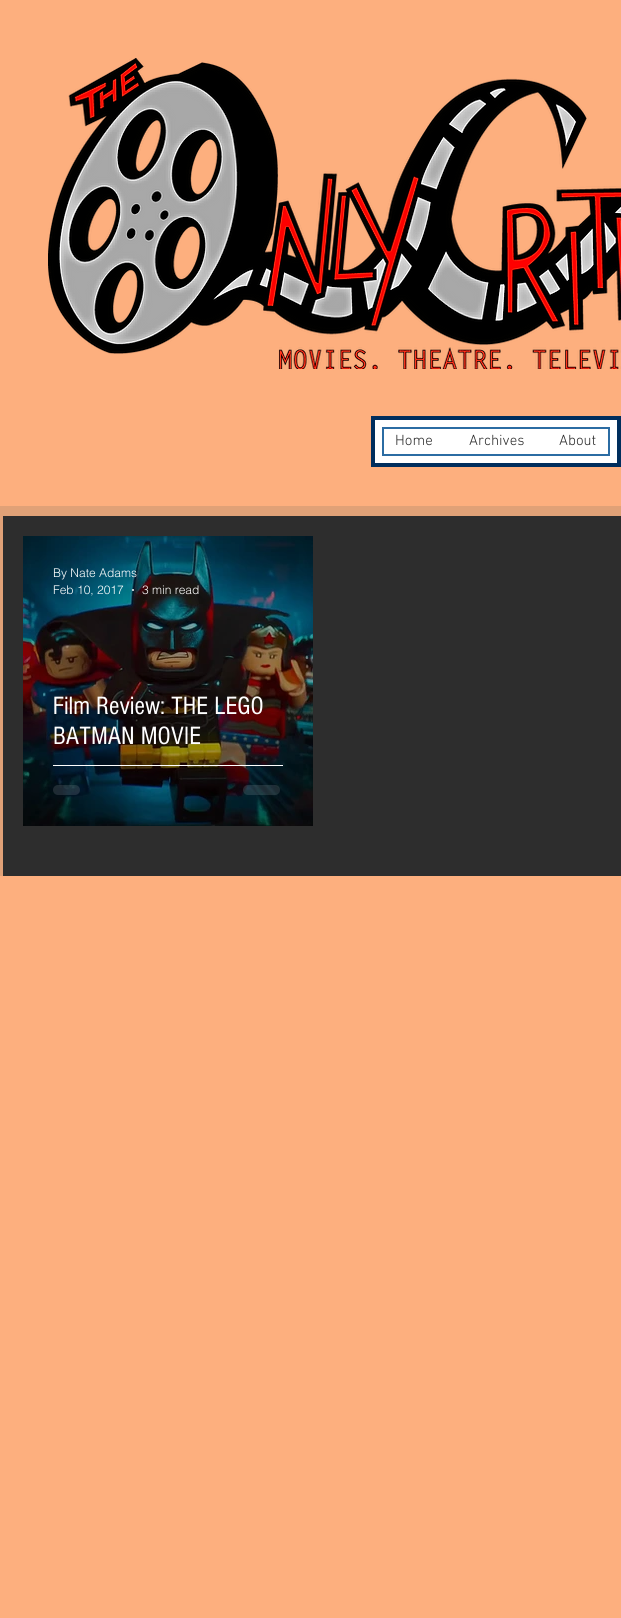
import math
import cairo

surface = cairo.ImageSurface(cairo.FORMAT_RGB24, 621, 1618)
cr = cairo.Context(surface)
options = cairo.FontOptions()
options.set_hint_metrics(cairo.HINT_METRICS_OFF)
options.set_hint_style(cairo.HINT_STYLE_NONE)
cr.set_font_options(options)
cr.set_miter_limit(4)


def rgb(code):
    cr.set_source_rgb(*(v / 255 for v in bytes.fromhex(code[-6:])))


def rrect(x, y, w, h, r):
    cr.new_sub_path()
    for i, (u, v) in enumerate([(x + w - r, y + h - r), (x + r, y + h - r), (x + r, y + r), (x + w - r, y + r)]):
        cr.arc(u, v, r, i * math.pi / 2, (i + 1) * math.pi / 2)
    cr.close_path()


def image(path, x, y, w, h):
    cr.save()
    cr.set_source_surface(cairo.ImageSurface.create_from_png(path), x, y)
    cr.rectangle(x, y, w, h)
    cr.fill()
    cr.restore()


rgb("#fdaf7e")
cr.paint()
image("img/1.png", 48, 58, 573, 311)
rgb("#ffffff")
cr.rectangle(373, 418, 246, 47)
cr.fill_preserve()
rgb("#002e5d")
cr.set_line_width(4)
cr.stroke()
cr.rectangle(383, 428, 226, 27)
rgb("#2b6ca3")
cr.set_line_width(2)
cr.stroke()
rgb("#e0a177")
cr.rectangle(0, 506, 621, 370)
cr.fill()
rgb("#2d2d2d")
cr.rectangle(3, 516, 618, 360)
cr.fill()
image("img/2.png", 23, 536, 290, 290)
rgb("#ffffff")
cr.arc(133, 590, 1, 0, 2 * math.pi)
cr.fill()
cr.rectangle(53, 765, 230, 1)
cr.fill()
cr.set_source_rgba(1, 1, 1, 0.12)
rrect(53, 785, 27, 10, 5)
cr.fill()
rrect(243, 785, 37, 10, 5)
cr.fill()
cr.select_font_face("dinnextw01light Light")
cr.set_font_size(15)
rgb("#2d2d2d")
for x, y, s in [
    (395, 445, "Home"),
    (469, 445, "Archives"),
    (559, 445, "About"),
]:
    cr.move_to(x, y)
    cr.show_text(s)
cr.select_font_face("helvetica Light")
cr.set_font_size(12)
rgb("#ffffff")
for x, y, s in [
    (53, 577, "By Nate Adams"),
    (53, 594, "Feb 10, 2017"),
    (142, 594, "3 min read"),
]:
    cr.move_to(x, y)
    cr.show_text(s)
cr.select_font_face("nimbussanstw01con")
cr.set_font_size(26)
cr.move_to(53, 714)
cr.show_text("Film Review: THE LEGO")
cr.move_to(53, 744)
cr.show_text("BATMAN MOVIE")
surface.write_to_png("page.png")
